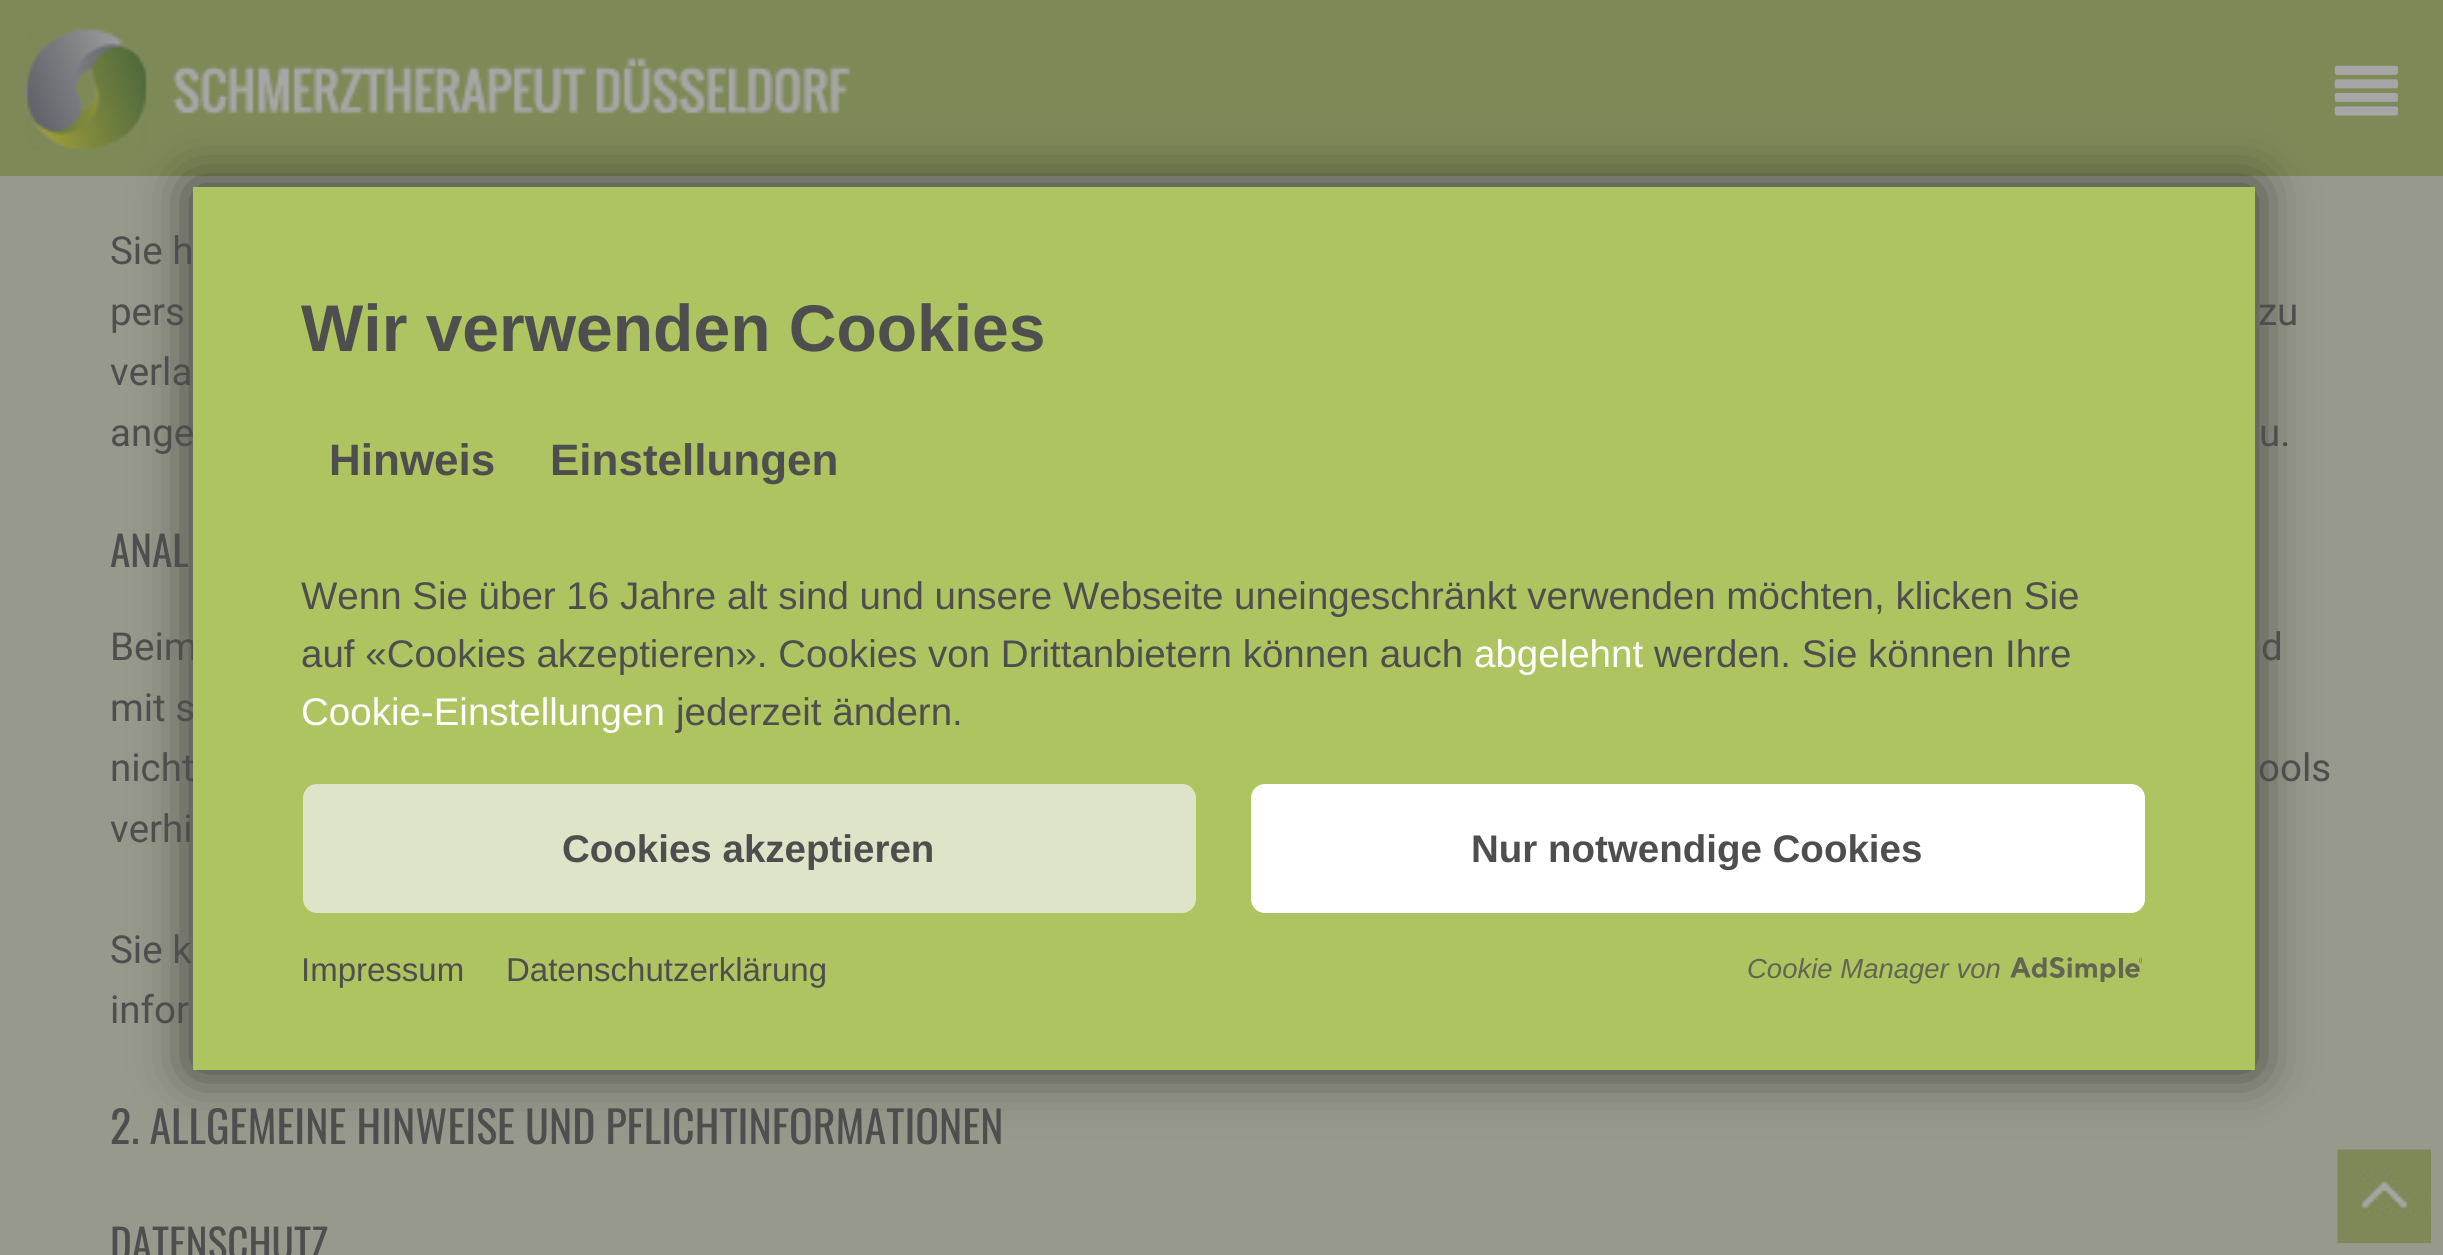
import math
import cairo

surface = cairo.ImageSurface(cairo.FORMAT_RGB24, 2443, 1255)
cr = cairo.Context(surface)
options = cairo.FontOptions()
options.set_hint_metrics(cairo.HINT_METRICS_OFF)
options.set_hint_style(cairo.HINT_STYLE_NONE)
cr.set_font_options(options)
cr.set_miter_limit(4)


def rgb(code):
    cr.set_source_rgb(*(v / 255 for v in bytes.fromhex(code[-6:])))


def rrect(x, y, w, h, r):
    cr.new_sub_path()
    for i, (u, v) in enumerate([(x + w - r, y + h - r), (x + r, y + h - r), (x + r, y + r), (x + w - r, y + r)]):
        cr.arc(u, v, r, i * math.pi / 2, (i + 1) * math.pi / 2)
    cr.close_path()


def soft_shadow(x, y, w, h, r, blur, alpha):
    cr.push_group_with_content(cairo.CONTENT_ALPHA)
    cr.set_operator(cairo.OPERATOR_SOURCE)
    for i in range(15, -16, -2):
        e = blur * i / 6
        if min(w, h) + 2 * e > 0:
            cr.set_source_rgba(0, 0, 0, alpha * math.erfc((i - 1) / 8.5) / 2)
            rrect(x - e, y - e, w + 2 * e, h + 2 * e, max(0, min(r + e + blur * .6, min(w, h) / 2 + e)))
            cr.fill()
    cr.mask(cr.pop_group())


def image(path, x, y, w, h):
    cr.save()
    cr.set_source_surface(cairo.ImageSurface.create_from_png(path), x, y)
    cr.rectangle(x, y, w, h)
    cr.fill()
    cr.restore()


rgb("#96998b")
cr.paint()
rgb("#7e8958")
cr.rectangle(0, 0, 2443, 176)
cr.fill()
image("img/1.png", 24, 27, 827, 124)
image("img/2.png", 2334, 65, 64, 51)
image("img/3.png", 2337, 1149, 94, 94)
rgb("#000000")
soft_shadow(193, 187, 2062, 883, 0, 27.5, 0.6)
cr.select_font_face("Roboto")
cr.set_font_size(38.5)
rgb("#4e4e4e")
for x, y, s in [
    (110, 264, "Sie h"),
    (110, 325, "pers"),
    (2258, 325, "zu"),
    (110, 385, "verla"),
    (110, 446, "ange"),
    (2259, 446, "u."),
]:
    cr.move_to(x, y)
    cr.show_text(s)
cr.select_font_face("Oswald")
cr.set_font_size(41.25)
cr.move_to(110, 567)
cr.show_text("ANAL")
cr.select_font_face("Roboto")
cr.set_font_size(38.5)
for x, y, s in [
    (110, 660, "Beim"),
    (2261, 660, "d"),
    (110, 721, "mit s"),
    (110, 781, "nicht"),
    (2258, 781, "ools"),
    (110, 842, "verhi"),
    (110, 963, "Sie k"),
    (110, 1023, "infor"),
]:
    cr.move_to(x, y)
    cr.show_text(s)
cr.select_font_face("Oswald")
cr.set_font_size(44)
cr.move_to(110, 1144)
cr.show_text("2. ALLGEMEINE HINWEISE UND PFLICHTINFORMATIONEN")
cr.set_font_size(41.25)
cr.move_to(110, 1260)
cr.show_text("DATENSCHUTZ")
rgb("#aec461")
cr.rectangle(193, 187, 2062, 883)
cr.fill()
cr.select_font_face("Liberation Sans", cairo.FONT_SLANT_NORMAL, cairo.FONT_WEIGHT_BOLD)
cr.set_font_size(66)
rgb("#4e4e4e")
cr.move_to(301, 351)
cr.show_text("Wir verwenden Cookies")
cr.set_font_size(44)
cr.move_to(329, 475)
cr.show_text("Hinweis")
cr.move_to(550, 475)
cr.show_text("Einstellungen")
cr.select_font_face("Liberation Sans")
cr.set_font_size(38.5)
cr.move_to(301, 609)
cr.show_text("Wenn Sie über 16 Jahre alt sind und unsere Webseite uneingeschränkt verwenden möchten, klicken Sie")
cr.move_to(301, 667)
cr.show_text("auf «Cookies akzeptieren». Cookies von Drittanbietern können auch")
rgb("#ffffff")
cr.move_to(1474, 667)
cr.show_text("abgelehnt")
rgb("#4e4e4e")
cr.move_to(1654, 667)
cr.show_text("werden. Sie können Ihre")
rgb("#ffffff")
cr.move_to(301, 725)
cr.show_text("Cookie-Einstellungen")
rgb("#4e4e4e")
cr.move_to(676, 725)
cr.show_text("jederzeit ändern.")
rgb("#dee4c7")
rrect(306, 787, 887, 123, 11)
cr.fill_preserve()
cr.set_line_width(6)
cr.stroke()
cr.select_font_face("Liberation Sans", cairo.FONT_SLANT_NORMAL, cairo.FONT_WEIGHT_BOLD)
rgb("#4e4e4e")
cr.move_to(562, 862)
cr.show_text("Cookies akzeptieren")
rgb("#ffffff")
rrect(1254, 787, 888, 123, 11)
cr.fill_preserve()
cr.stroke()
rgb("#4e4e4e")
cr.move_to(1471, 862)
cr.show_text("Nur notwendige Cookies")
cr.select_font_face("Liberation Sans")
cr.set_font_size(33)
cr.move_to(301, 981)
cr.show_text("Impressum")
cr.move_to(506, 981)
cr.show_text("Datenschutzerklärung")
cr.select_font_face("Liberation Sans", cairo.FONT_SLANT_ITALIC)
cr.set_font_size(27.5)
rgb("#616652")
cr.move_to(1747, 978)
cr.show_text("Cookie Manager von")
image("img/4.png", 2010, 957, 132, 25)
surface.write_to_png("page.png")
